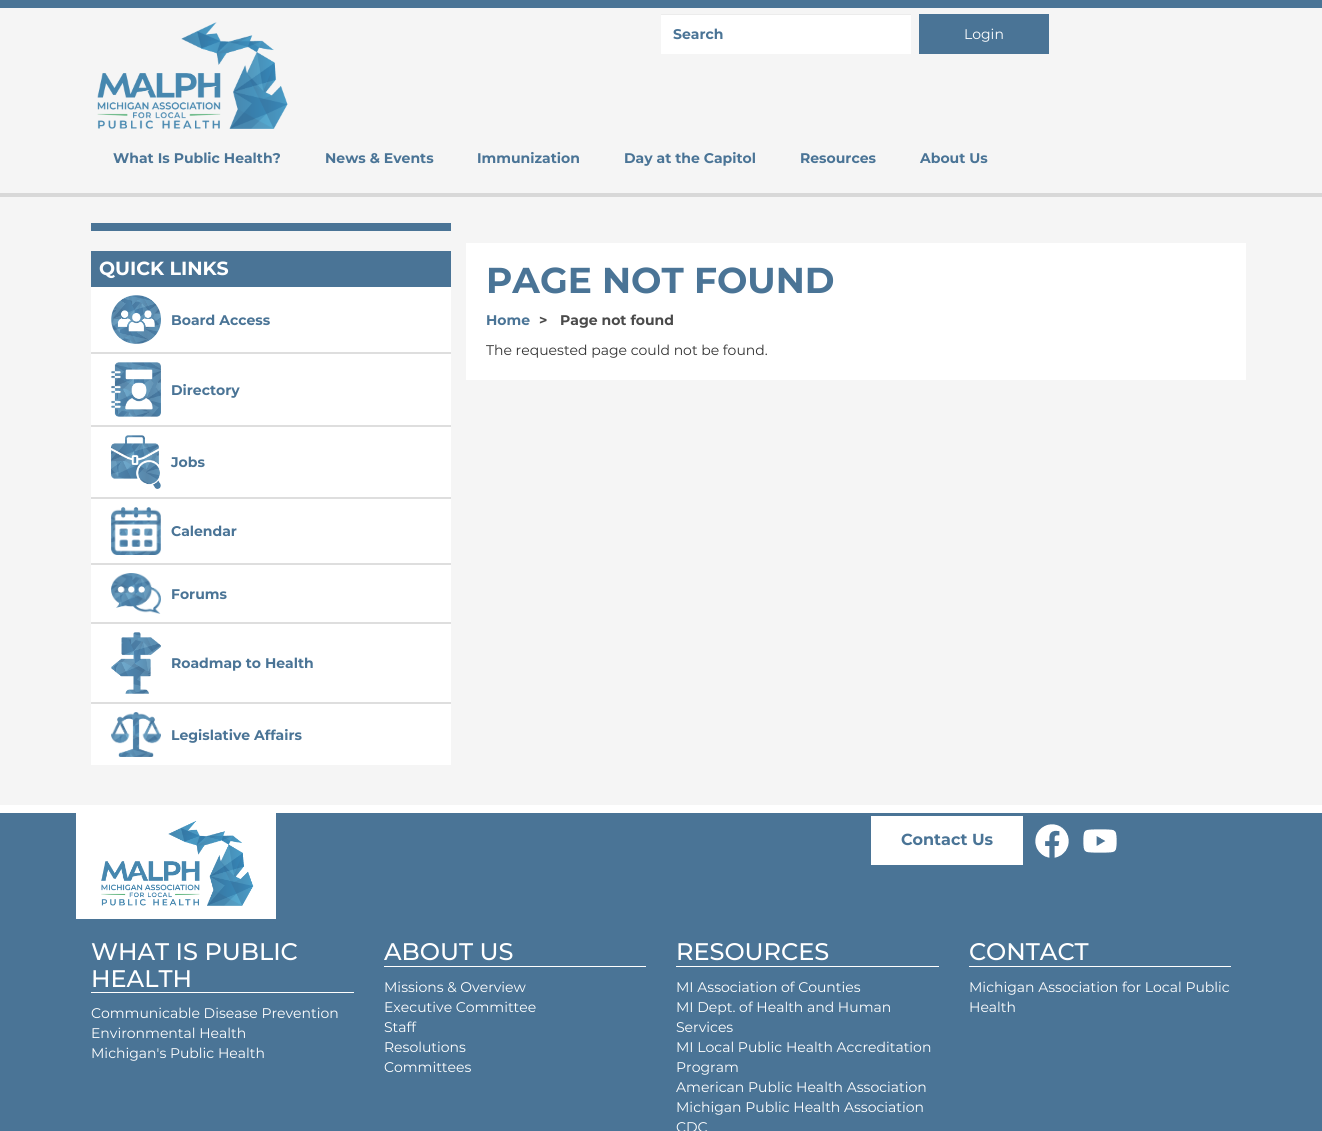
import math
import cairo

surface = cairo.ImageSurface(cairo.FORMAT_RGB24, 1322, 1131)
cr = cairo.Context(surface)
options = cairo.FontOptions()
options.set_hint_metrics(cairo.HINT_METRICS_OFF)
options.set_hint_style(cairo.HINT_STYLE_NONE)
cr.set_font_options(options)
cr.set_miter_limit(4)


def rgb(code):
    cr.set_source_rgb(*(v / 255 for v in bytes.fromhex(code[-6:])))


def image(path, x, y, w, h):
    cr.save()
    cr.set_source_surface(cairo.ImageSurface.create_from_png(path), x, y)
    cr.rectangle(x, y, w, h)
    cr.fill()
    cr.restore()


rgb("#4a7496")
cr.paint()
rgb("#f5f5f5")
cr.rectangle(0, 8, 1322, 185)
cr.fill()
image("img/1.png", 97, 22, 191, 107)
for x, y, w, h, color in [
    (661, 15, 250, 39, "#ffffff"),
    (661, 14, 250, 1, "#ececec"),
    (919, 14, 130, 40, "#4a7496"),
    (0, 193, 1322, 4, "#d8d8d8"),
    (0, 197, 1322, 608, "#f5f5f5"),
    (91, 223, 360, 8, "#4a7496"),
    (91, 287, 360, 478, "#ffffff"),
    (91, 251, 360, 36, "#4a7496"),
    (91, 352, 360, 2, "#dedede"),
]:
    rgb(color)
    cr.rectangle(x, y, w, h)
    cr.fill()
image("img/2.png", 111, 295, 50, 49)
cr.rectangle(91, 425, 360, 2)
cr.fill()
image("img/3.png", 111, 362, 50, 55)
cr.rectangle(91, 497, 360, 2)
cr.fill()
image("img/4.png", 111, 435, 50, 54)
cr.rectangle(91, 563, 360, 2)
cr.fill()
image("img/5.png", 111, 507, 50, 48)
cr.rectangle(91, 622, 360, 2)
cr.fill()
image("img/6.png", 111, 573, 50, 41)
cr.rectangle(91, 702, 360, 2)
cr.fill()
image("img/7.png", 111, 632, 50, 62)
image("img/8.png", 111, 712, 50, 45)
for x, y, w, h, color in [
    (466, 243, 780, 137, "#ffffff"),
    (0, 805, 1322, 8, "#ffffff"),
    (76, 813, 200, 106, "#ffffff"),
]:
    rgb(color)
    cr.rectangle(x, y, w, h)
    cr.fill()
image("img/9.png", 101, 821, 153, 85)
cr.rectangle(871, 816, 152, 49)
cr.fill()
image("img/10.png", 1035, 824, 34, 34)
image("img/11.png", 1083, 829, 34, 24)
for x, y, w, h, color in [
    (91, 992, 263, 1, "#ffffff"),
    (384, 966, 262, 1, "#ffffff"),
    (676, 966, 263, 1, "#ffffff"),
    (969, 966, 262, 1, "#ffffff"),
]:
    rgb(color)
    cr.rectangle(x, y, w, h)
    cr.fill()
cr.select_font_face("Montserrat", cairo.FONT_SLANT_NORMAL, cairo.FONT_WEIGHT_BOLD)
cr.set_font_size(14)
rgb("#4a7496")
cr.move_to(673, 39)
cr.show_text("Search")
cr.select_font_face("Montserrat")
rgb("#ffffff")
cr.move_to(964, 39)
cr.show_text("Login")
cr.select_font_face("Montserrat", cairo.FONT_SLANT_NORMAL, cairo.FONT_WEIGHT_BOLD)
rgb("#4a7496")
for x, y, s in [
    (113, 163, "What Is Public Health?"),
    (325, 163, "News & Events"),
    (477, 163, "Immunization"),
    (624, 163, "Day at the Capitol"),
    (800, 163, "Resources"),
    (920, 163, "About Us"),
]:
    cr.move_to(x, y)
    cr.show_text(s)
cr.set_font_size(19)
rgb("#ffffff")
cr.move_to(99, 275)
cr.show_text("QUICK LINKS")
cr.set_font_size(14)
rgb("#4a7496")
for x, y, s in [
    (171, 325, "Board Access"),
    (171, 395, "Directory"),
    (171, 467, "Jobs"),
    (171, 536, "Calendar"),
    (171, 599, "Forums"),
    (171, 668, "Roadmap to Health"),
    (171, 740, "Legislative Affairs"),
]:
    cr.move_to(x, y)
    cr.show_text(s)
cr.set_font_size(36)
cr.move_to(486, 293)
cr.show_text("PAGE NOT FOUND")
cr.set_font_size(14)
cr.move_to(486, 325)
cr.show_text("Home")
rgb("#4a4a4a")
cr.move_to(539, 325)
cr.show_text(">")
cr.move_to(560, 325)
cr.show_text("Page not found")
cr.select_font_face("Montserrat")
rgb("#333333")
cr.move_to(486, 355)
cr.show_text("The requested page could not be found.")
cr.select_font_face("Montserrat", cairo.FONT_SLANT_NORMAL, cairo.FONT_WEIGHT_BOLD)
cr.set_font_size(16)
rgb("#4a7496")
cr.move_to(901, 845)
cr.show_text("Contact Us")
cr.select_font_face("Montserrat Medium")
cr.set_font_size(24)
rgb("#ffffff")
cr.move_to(91, 960)
cr.show_text("WHAT IS PUBLIC")
cr.move_to(91, 987)
cr.show_text("HEALTH")
cr.select_font_face("Montserrat")
cr.set_font_size(14)
for x, y, s in [
    (91, 1018, "Communicable Disease Prevention"),
    (91, 1038, "Environmental Health"),
    (91, 1058, "Michigan's Public Health"),
]:
    cr.move_to(x, y)
    cr.show_text(s)
cr.select_font_face("Montserrat Medium")
cr.set_font_size(24)
cr.move_to(384, 960)
cr.show_text("ABOUT US")
cr.select_font_face("Montserrat")
cr.set_font_size(14)
for x, y, s in [
    (384, 992, "Missions & Overview"),
    (384, 1012, "Executive Committee"),
    (384, 1032, "Staff"),
    (384, 1052, "Resolutions"),
    (384, 1072, "Committees"),
]:
    cr.move_to(x, y)
    cr.show_text(s)
cr.select_font_face("Montserrat Medium")
cr.set_font_size(24)
cr.move_to(676, 960)
cr.show_text("RESOURCES")
cr.select_font_face("Montserrat")
cr.set_font_size(14)
for x, y, s in [
    (676, 992, "MI Association of Counties"),
    (676, 1012, "MI Dept. of Health and Human"),
    (676, 1032, "Services"),
    (676, 1052, "MI Local Public Health Accreditation"),
    (676, 1072, "Program"),
    (676, 1092, "American Public Health Association"),
    (676, 1112, "Michigan Public Health Association"),
    (676, 1132, "CDC"),
]:
    cr.move_to(x, y)
    cr.show_text(s)
cr.select_font_face("Montserrat Medium")
cr.set_font_size(24)
cr.move_to(969, 960)
cr.show_text("CONTACT")
cr.select_font_face("Montserrat")
cr.set_font_size(14)
cr.move_to(969, 992)
cr.show_text("Michigan Association for Local Public")
cr.move_to(969, 1012)
cr.show_text("Health")
surface.write_to_png("page.png")
